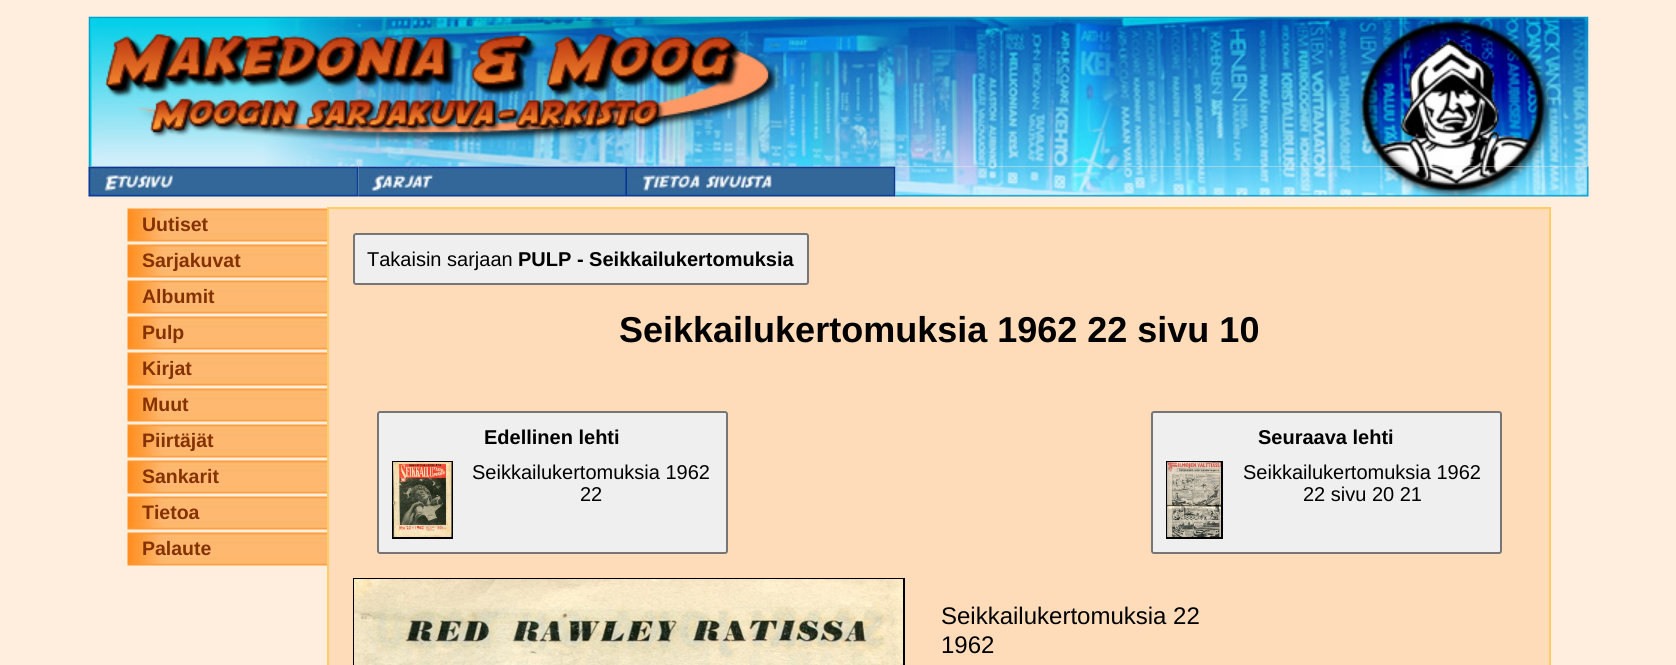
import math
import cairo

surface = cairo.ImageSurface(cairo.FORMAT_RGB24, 1676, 665)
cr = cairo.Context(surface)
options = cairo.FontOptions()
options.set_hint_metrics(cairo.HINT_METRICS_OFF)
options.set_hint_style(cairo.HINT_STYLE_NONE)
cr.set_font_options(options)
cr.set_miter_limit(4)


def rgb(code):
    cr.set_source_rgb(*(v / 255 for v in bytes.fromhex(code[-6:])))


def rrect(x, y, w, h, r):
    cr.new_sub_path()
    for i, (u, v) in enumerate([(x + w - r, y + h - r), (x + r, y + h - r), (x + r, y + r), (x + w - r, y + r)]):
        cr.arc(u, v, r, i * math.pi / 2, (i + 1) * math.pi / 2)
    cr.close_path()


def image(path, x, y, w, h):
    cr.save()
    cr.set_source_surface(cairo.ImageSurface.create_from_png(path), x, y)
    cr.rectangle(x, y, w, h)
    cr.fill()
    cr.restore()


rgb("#ffeedd")
cr.paint()
image("img/2.png", 88, 166, 271, 31)
image("img/3.png", 358, 166, 269, 31)
image("img/4.png", 627, 166, 269, 31)
image("img/5.png", 895, 166, 694, 31)
image("img/1.png", 88, 16, 1501, 151)
image("img/6.png", 127, 208, 200, 34)
image("img/6.png", 127, 244, 200, 34)
image("img/6.png", 127, 280, 200, 34)
image("img/6.png", 127, 316, 200, 34)
image("img/6.png", 127, 352, 200, 34)
image("img/6.png", 127, 388, 200, 34)
image("img/6.png", 127, 424, 200, 34)
image("img/6.png", 127, 460, 200, 34)
image("img/6.png", 127, 496, 200, 34)
image("img/6.png", 127, 532, 200, 34)
rgb("#ffdcb9")
cr.rectangle(328, 208, 1222, 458)
cr.fill_preserve()
rgb("#ffcc66")
cr.stroke()
rgb("#efefef")
rrect(354, 234, 454, 50, 2)
cr.fill_preserve()
rgb("#767676")
cr.stroke()
rgb("#efefef")
rrect(378, 412, 349, 141, 2)
cr.fill_preserve()
rgb("#767676")
cr.stroke()
cr.rectangle(393, 462, 59, 76)
rgb("#000000")
cr.stroke()
image("img/7.png", 393, 462, 59, 75)
rgb("#efefef")
rrect(1152, 412, 349, 141, 2)
cr.fill_preserve()
rgb("#767676")
cr.stroke()
cr.rectangle(1167, 462, 55, 76)
rgb("#000000")
cr.stroke()
image("img/8.png", 1167, 462, 54, 75)
cr.rectangle(354, 579, 550, 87)
cr.stroke()
image("img/9.png", 354, 579, 549, 86)
cr.select_font_face("Liberation Sans", cairo.FONT_SLANT_NORMAL, cairo.FONT_WEIGHT_BOLD)
cr.set_font_size(19.5)
rgb("#863200")
for x, y, s in [
    (142, 231, "Uutiset"),
    (142, 267, "Sarjakuvat"),
    (142, 303, "Albumit"),
    (142, 339, "Pulp"),
    (142, 375, "Kirjat"),
    (142, 411, "Muut"),
    (142, 447, "Piirtäjät"),
    (142, 483, "Sankarit"),
    (142, 519, "Tietoa"),
    (142, 555, "Palaute"),
]:
    cr.move_to(x, y)
    cr.show_text(s)
cr.select_font_face("Liberation Sans")
cr.set_font_size(20)
rgb("#000000")
cr.move_to(367, 266)
cr.show_text("Takaisin sarjaan")
cr.select_font_face("Liberation Sans", cairo.FONT_SLANT_NORMAL, cairo.FONT_WEIGHT_BOLD)
cr.move_to(518, 266)
cr.show_text("PULP - Seikkailukertomuksia")
cr.set_font_size(36)
cr.move_to(619, 342)
cr.show_text("Seikkailukertomuksia 1962 22 sivu 10")
cr.set_font_size(20)
cr.move_to(484, 444)
cr.show_text("Edellinen lehti")
cr.select_font_face("Liberation Sans")
cr.move_to(472, 479)
cr.show_text("Seikkailukertomuksia 1962")
cr.move_to(580, 501)
cr.show_text("22")
cr.select_font_face("Liberation Sans", cairo.FONT_SLANT_NORMAL, cairo.FONT_WEIGHT_BOLD)
cr.move_to(1258, 444)
cr.show_text("Seuraava lehti")
cr.select_font_face("Liberation Sans")
cr.move_to(1243, 479)
cr.show_text("Seikkailukertomuksia 1962")
cr.move_to(1303, 501)
cr.show_text("22 sivu 20 21")
cr.set_font_size(24)
cr.move_to(941, 624)
cr.show_text("Seikkailukertomuksia 22")
cr.move_to(941, 653)
cr.show_text("1962")
surface.write_to_png("page.png")
